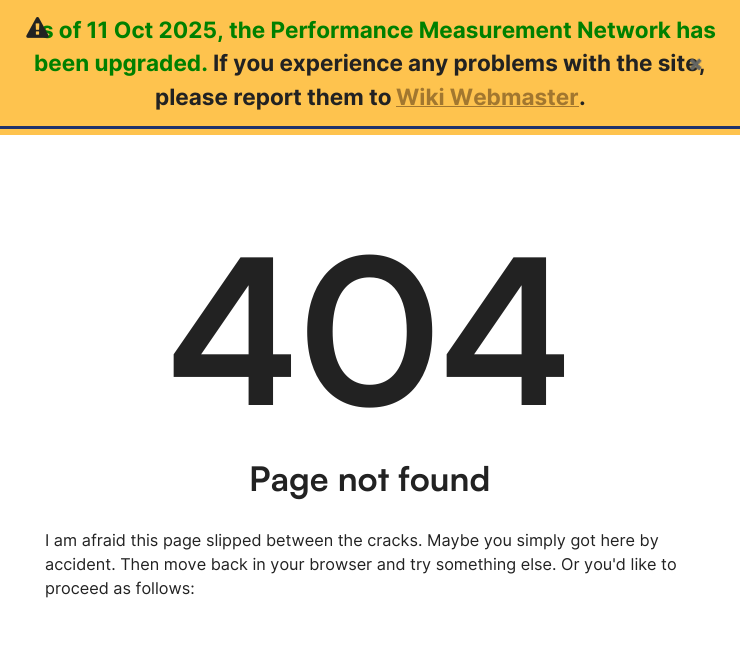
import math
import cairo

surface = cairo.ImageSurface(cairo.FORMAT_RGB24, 740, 666)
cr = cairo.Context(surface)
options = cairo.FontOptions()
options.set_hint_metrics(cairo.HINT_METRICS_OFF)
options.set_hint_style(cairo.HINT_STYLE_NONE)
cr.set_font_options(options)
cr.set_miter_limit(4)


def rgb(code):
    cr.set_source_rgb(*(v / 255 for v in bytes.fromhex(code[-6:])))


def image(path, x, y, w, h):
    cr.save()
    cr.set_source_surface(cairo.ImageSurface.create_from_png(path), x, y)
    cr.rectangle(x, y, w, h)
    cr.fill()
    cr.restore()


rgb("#ffffff")
cr.paint()
for x, y, w, h, color in [
    (0, 0, 740, 126, "#fec34e"),
    (0, 126, 740, 3, "#1f326b"),
    (396, 106, 183, 1, "#a2772f"),
    (0, 129, 740, 6, "#fec34e"),
]:
    rgb(color)
    cr.rectangle(x, y, w, h)
    cr.fill()
cr.select_font_face("Inter", cairo.FONT_SLANT_NORMAL, cairo.FONT_WEIGHT_BOLD)
cr.set_font_size(22.5)
rgb("#008000")
cr.move_to(41, 38)
cr.show_text("s of 11 Oct 2025, the Performance Measurement Network has")
image("img/1.png", 26, 17, 23, 21)
cr.move_to(34, 71)
cr.show_text("been upgraded.")
rgb("#222222")
cr.move_to(213, 71)
cr.show_text("If you experience any problems with the site,")
cr.move_to(155, 105)
cr.show_text("please report them to")
rgb("#a2772f")
cr.move_to(396, 105)
cr.show_text("Wiki Webmaster")
rgb("#222222")
cr.move_to(579, 105)
cr.show_text(".")
image("img/2.png", 690, 58, 12, 13)
cr.select_font_face("Satoshi", cairo.FONT_SLANT_NORMAL, cairo.FONT_WEIGHT_BOLD)
cr.set_font_size(202)
cr.move_to(168, 405)
cr.show_text("404")
cr.set_font_size(33.75)
cr.move_to(249, 491)
cr.show_text("Page not found")
cr.select_font_face("Inter")
cr.set_font_size(16.25)
for x, y, s in [
    (45, 546, "I am afraid this page slipped between the cracks. Maybe you simply got here by"),
    (45, 570, "accident. Then move back in your browser and try something else. Or you'd like to"),
    (45, 594, "proceed as follows:"),
]:
    cr.move_to(x, y)
    cr.show_text(s)
surface.write_to_png("page.png")
